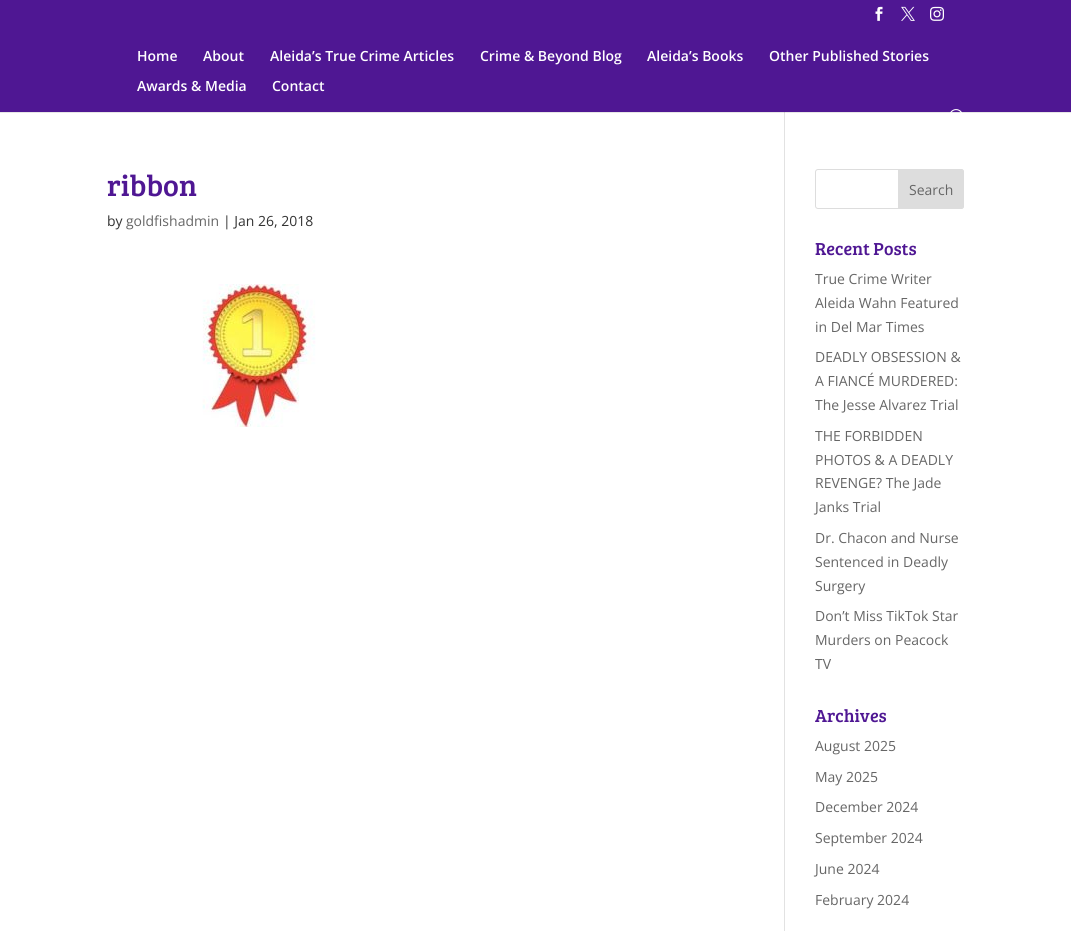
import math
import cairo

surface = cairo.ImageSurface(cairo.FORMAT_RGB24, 1071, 931)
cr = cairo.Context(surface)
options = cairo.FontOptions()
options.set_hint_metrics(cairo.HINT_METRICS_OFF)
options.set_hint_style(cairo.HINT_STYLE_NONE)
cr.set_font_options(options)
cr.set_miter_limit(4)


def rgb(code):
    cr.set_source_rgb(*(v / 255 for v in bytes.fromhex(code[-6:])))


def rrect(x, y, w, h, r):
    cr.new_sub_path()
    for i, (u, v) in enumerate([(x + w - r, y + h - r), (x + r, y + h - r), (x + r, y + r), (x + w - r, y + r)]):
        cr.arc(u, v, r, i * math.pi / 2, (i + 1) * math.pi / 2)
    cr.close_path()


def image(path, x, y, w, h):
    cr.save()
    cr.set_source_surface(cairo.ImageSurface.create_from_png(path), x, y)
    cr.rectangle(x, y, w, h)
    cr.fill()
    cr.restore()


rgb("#4f1793")
cr.paint()
image("img/1.png", 875, 6, 8, 15)
image("img/2.png", 901, 6, 14, 15)
image("img/3.png", 930, 6, 14, 15)
for x, y, w, h, color in [
    (0, 113, 1071, 818, "#ffffff"),
    (0, 112, 1071, 1, "#e6e6e6"),
    (784, 111, 1, 820, "#e2e2e2"),
    (784, 111, 1, 1, "#4f1793"),
]:
    rgb(color)
    cr.rectangle(x, y, w, h)
    cr.fill()
image("img/4.png", 950, 109, 12, 4)
rgb("#cbcbcb")
cr.rectangle(784, 112, 1, 1)
cr.fill()
image("img/5.png", 202, 284, 114, 143)
rrect(815.5, 169.5, 148, 39, 2.5)
rgb("#dddddd")
cr.set_line_width(1)
cr.stroke()
cr.new_path()
cr.move_to(898.5, 169.5)
cr.line_to(961, 169.5)
cr.curve_to(962.5, 169.5, 963.5, 170.5, 963.5, 172)
cr.line_to(963.5, 206)
cr.curve_to(963.5, 207.5, 962.5, 208.5, 961, 208.5)
cr.line_to(898.5, 208.5)
cr.close_path()
cr.fill_preserve()
cr.stroke()
cr.select_font_face("Open Sans SemiBold")
cr.set_font_size(14)
rgb("#ffffff")
for x, y, s in [
    (137, 61, "Home"),
    (203, 61, "About"),
    (270, 61, "Aleida’s True Crime Articles"),
    (480, 61, "Crime & Beyond Blog"),
    (647, 61, "Aleida’s Books"),
    (769, 61, "Other Published Stories"),
    (137, 91, "Awards & Media"),
    (272, 91, "Contact"),
]:
    cr.move_to(x, y)
    cr.show_text(s)
cr.select_font_face("Bree Serif")
cr.set_font_size(30)
rgb("#4f1793")
cr.move_to(107, 196)
cr.show_text("ribbon")
cr.select_font_face("Open Sans")
cr.set_font_size(14)
rgb("#333333")
cr.move_to(107, 226)
cr.show_text("by")
rgb("#666666")
cr.move_to(126, 226)
cr.show_text("goldfishadmin")
rgb("#333333")
cr.move_to(223, 226)
cr.show_text("| Jan 26, 2018")
rgb("#666666")
cr.move_to(909, 195)
cr.show_text("Search")
cr.select_font_face("Bree Serif")
cr.set_font_size(18)
rgb("#4f1793")
cr.move_to(815, 255)
cr.show_text("Recent Posts")
cr.select_font_face("Open Sans")
cr.set_font_size(14)
rgb("#666666")
for x, y, s in [
    (815, 284, "True Crime Writer"),
    (815, 308, "Aleida Wahn Featured"),
    (815, 332, "in Del Mar Times"),
    (815, 362, "DEADLY OBSESSION &"),
    (815, 386, "A FIANCÉ MURDERED:"),
    (815, 410, "The Jesse Alvarez Trial"),
    (815, 441, "THE FORBIDDEN"),
    (815, 465, "PHOTOS & A DEADLY"),
    (815, 488, "REVENGE? The Jade"),
    (815, 512, "Janks Trial"),
    (815, 543, "Dr. Chacon and Nurse"),
    (815, 567, "Sentenced in Deadly"),
    (815, 591, "Surgery"),
    (815, 621, "Don’t Miss TikTok Star"),
    (815, 645, "Murders on Peacock"),
    (815, 669, "TV"),
]:
    cr.move_to(x, y)
    cr.show_text(s)
cr.select_font_face("Bree Serif")
cr.set_font_size(18)
rgb("#4f1793")
cr.move_to(815, 722)
cr.show_text("Archives")
cr.select_font_face("Open Sans")
cr.set_font_size(14)
rgb("#666666")
for x, y, s in [
    (815, 751, "August 2025"),
    (815, 782, "May 2025"),
    (815, 812, "December 2024"),
    (815, 843, "September 2024"),
    (815, 874, "June 2024"),
    (815, 905, "February 2024"),
]:
    cr.move_to(x, y)
    cr.show_text(s)
surface.write_to_png("page.png")
